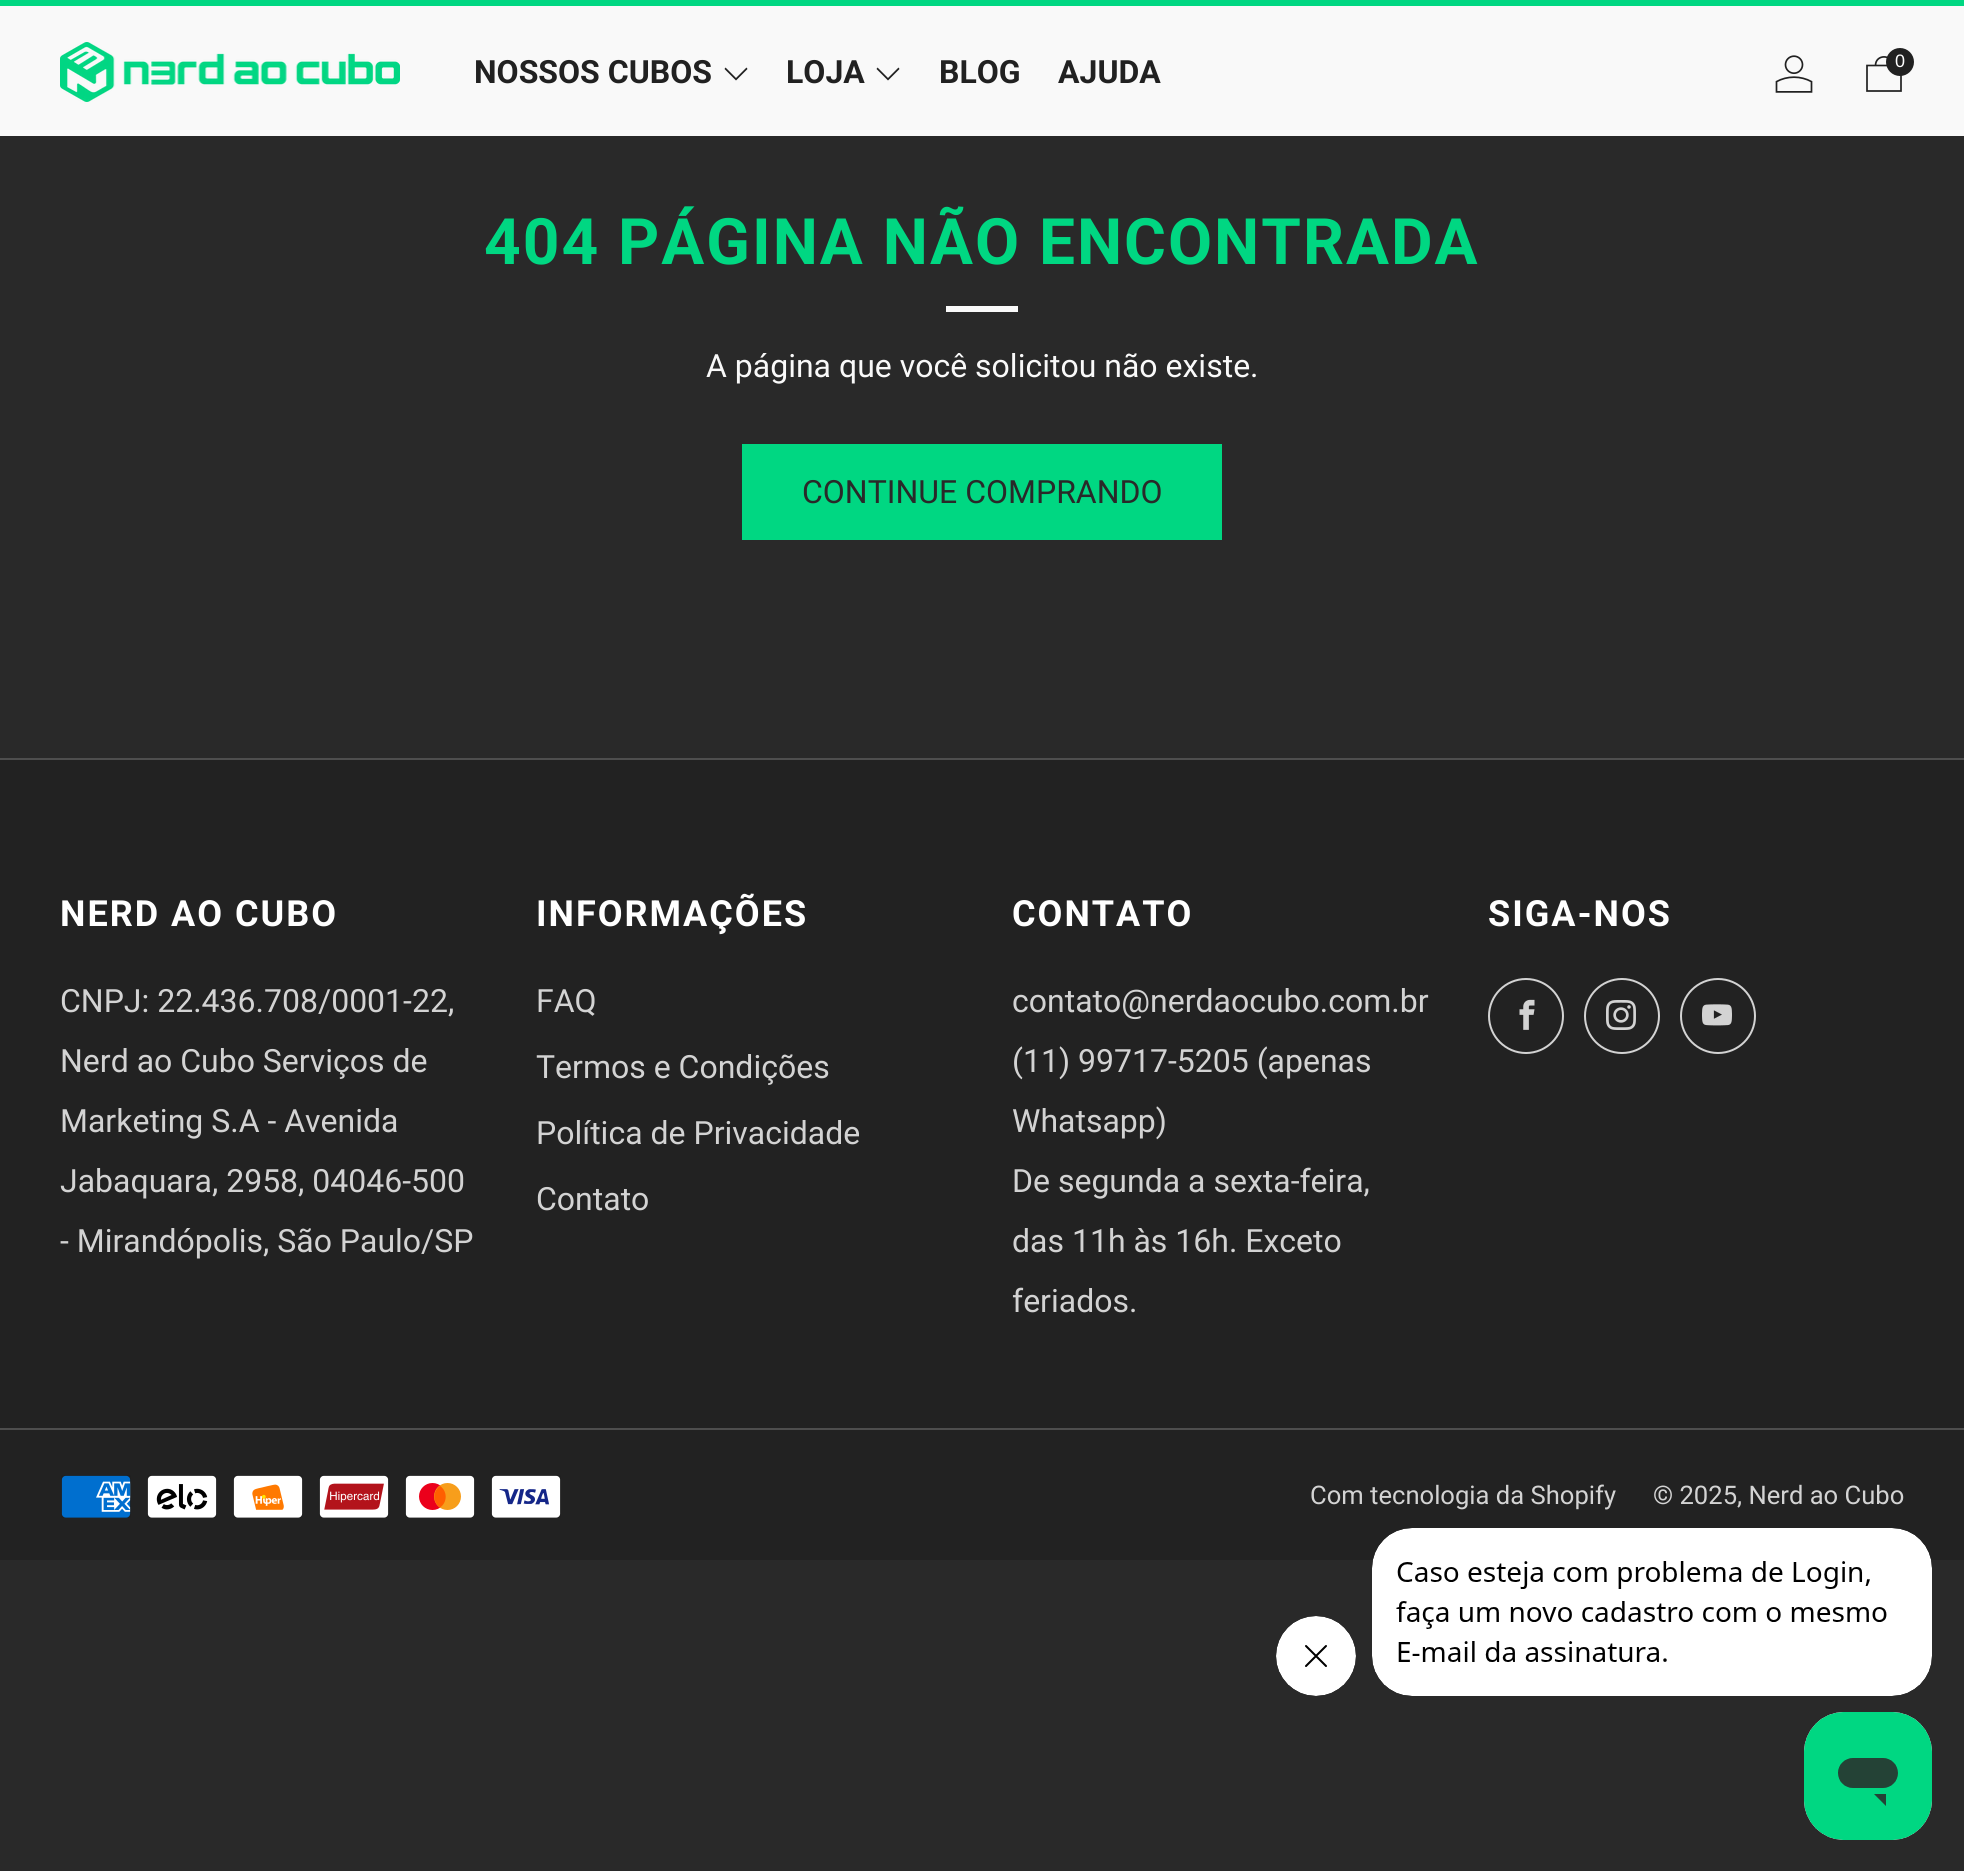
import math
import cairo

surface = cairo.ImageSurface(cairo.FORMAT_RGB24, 1964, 1871)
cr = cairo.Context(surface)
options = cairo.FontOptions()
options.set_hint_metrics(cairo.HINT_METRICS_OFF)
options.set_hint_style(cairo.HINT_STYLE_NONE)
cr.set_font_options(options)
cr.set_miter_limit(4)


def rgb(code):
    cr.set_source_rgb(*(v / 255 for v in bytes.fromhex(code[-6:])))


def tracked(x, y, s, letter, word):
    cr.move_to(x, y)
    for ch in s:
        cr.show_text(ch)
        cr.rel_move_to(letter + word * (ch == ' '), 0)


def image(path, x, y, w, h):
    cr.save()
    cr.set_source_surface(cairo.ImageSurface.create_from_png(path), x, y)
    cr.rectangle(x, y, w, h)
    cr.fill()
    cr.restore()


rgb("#292929")
cr.paint()
rgb("#00d782")
cr.rectangle(0, 0, 1964, 6)
cr.fill()
rgb("#f9f9f9")
cr.rectangle(0, 6, 1964, 130)
cr.fill()
image("img/1.png", 60, 42, 340, 60)
rgb("#212121")
cr.new_path()
cr.move_to(725.5, 67.5)
cr.line_to(724.5, 69)
cr.line_to(736, 80.5)
cr.line_to(747.5, 69)
cr.line_to(746.5, 67.5)
cr.line_to(736, 78)
cr.close_path()
cr.fill()
cr.new_path()
cr.move_to(877.5, 67.5)
cr.line_to(876.5, 69)
cr.line_to(888, 80.5)
cr.line_to(899.5, 69)
cr.line_to(898.5, 67.5)
cr.line_to(888, 78)
cr.close_path()
cr.fill()
image("img/2.png", 1775, 55, 38, 38)
cr.new_path()
cr.move_to(1867, 65.5)
cr.line_to(1901, 65.5)
cr.line_to(1901, 91)
cr.line_to(1867, 91)
cr.close_path()
cr.move_to(1892.5, 65.5)
cr.curve_to(1892.5, 54, 1875.5, 54, 1875.5, 65.5)
cr.set_line_width(1.7)
cr.stroke()
cr.arc(1900, 62, 14, 0, 2 * math.pi)
cr.fill()
for x, y, w, h, color in [
    (946, 306, 72, 6, "#f9f9f9"),
    (742, 444, 480, 96, "#00d782"),
    (0, 760, 1964, 800, "#222222"),
    (0, 758, 1964, 2, "#4e4e4e"),
]:
    rgb(color)
    cr.rectangle(x, y, w, h)
    cr.fill()
cr.arc(1526, 1016, 37, 0, 2 * math.pi)
rgb("#d3d3d3")
cr.set_line_width(2)
cr.stroke()
image("img/3.png", 1519, 999, 16, 31)
cr.arc(1622, 1016, 37, 0, 2 * math.pi)
cr.stroke()
image("img/4.png", 1606, 1000, 30, 30)
cr.arc(1718, 1016, 37, 0, 2 * math.pi)
cr.stroke()
image("img/5.png", 1702, 1004, 30, 22)
rgb("#4e4e4e")
cr.rectangle(0, 1428, 1964, 2)
cr.fill()
image("img/6.png", 61, 1475, 70, 43)
image("img/7.png", 147, 1475, 70, 43)
image("img/8.png", 233, 1475, 70, 43)
image("img/9.png", 319, 1475, 70, 43)
image("img/10.png", 405, 1475, 70, 43)
image("img/11.png", 491, 1475, 70, 43)
image("img/12.png", 1276, 1616, 80, 80)
image("img/13.png", 1372, 1528, 560, 168)
image("img/14.png", 1804, 1712, 128, 128)
cr.select_font_face("Roboto", cairo.FONT_SLANT_NORMAL, cairo.FONT_WEIGHT_BOLD)
cr.set_font_size(32)
rgb("#212121")
for x, y, s in [
    (474, 83, "NOSSOS CUBOS"),
    (786, 83, "LOJA"),
    (939, 83, "BLOG"),
    (1058, 83, "AJUDA"),
]:
    cr.move_to(x, y)
    cr.show_text(s)
cr.select_font_face("Liberation Sans")
cr.set_font_size(18)
rgb("#ffffff")
cr.move_to(1895, 67)
cr.show_text("0")
cr.select_font_face("Roboto", cairo.FONT_SLANT_NORMAL, cairo.FONT_WEIGHT_BOLD)
cr.set_font_size(64)
rgb("#00d782")
tracked(484, 264, "404 PÁGINA NÃO ENCONTRADA", 2, 0)
cr.select_font_face("Roboto")
cr.set_font_size(32)
rgb("#f9f9f9")
cr.move_to(706, 377)
cr.show_text("A página que você solicitou não existe.")
rgb("#292929")
cr.move_to(802, 503)
cr.show_text("CONTINUE COMPRANDO")
cr.select_font_face("Roboto", cairo.FONT_SLANT_NORMAL, cairo.FONT_WEIGHT_BOLD)
cr.set_font_size(36)
rgb("#ffffff")
tracked(60, 926, "NERD AO CUBO", 2, 0)
cr.select_font_face("Roboto")
cr.set_font_size(32)
rgb("#d3d3d3")
for x, y, s in [
    (60, 1012, "CNPJ: 22.436.708/0001-22,"),
    (60, 1072, "Nerd ao Cubo Serviços de"),
    (60, 1132, "Marketing S.A - Avenida"),
    (60, 1192, "Jabaquara, 2958, 04046-500"),
    (60, 1252, "- Mirandópolis, São Paulo/SP"),
]:
    cr.move_to(x, y)
    cr.show_text(s)
cr.select_font_face("Roboto", cairo.FONT_SLANT_NORMAL, cairo.FONT_WEIGHT_BOLD)
cr.set_font_size(36)
rgb("#ffffff")
tracked(536, 926, "INFORMAÇÕES", 2, 0)
cr.select_font_face("Roboto")
cr.set_font_size(32)
rgb("#d3d3d3")
for x, y, s in [
    (536, 1012, "FAQ"),
    (536, 1078, "Termos e Condições"),
    (536, 1144, "Política de Privacidade"),
    (536, 1210, "Contato"),
]:
    cr.move_to(x, y)
    cr.show_text(s)
cr.select_font_face("Roboto", cairo.FONT_SLANT_NORMAL, cairo.FONT_WEIGHT_BOLD)
cr.set_font_size(36)
rgb("#ffffff")
tracked(1012, 926, "CONTATO", 2, 0)
cr.select_font_face("Roboto")
cr.set_font_size(32)
rgb("#d3d3d3")
for x, y, s in [
    (1012, 1012, "contato@nerdaocubo.com.br"),
    (1012, 1072, "(11) 99717-5205 (apenas"),
    (1012, 1132, "Whatsapp)"),
    (1012, 1192, "De segunda a sexta-feira,"),
    (1012, 1252, "das 11h às 16h. Exceto"),
    (1012, 1312, "feriados."),
]:
    cr.move_to(x, y)
    cr.show_text(s)
cr.select_font_face("Roboto", cairo.FONT_SLANT_NORMAL, cairo.FONT_WEIGHT_BOLD)
cr.set_font_size(36)
rgb("#ffffff")
tracked(1488, 926, "SIGA-NOS", 2, 0)
cr.select_font_face("Roboto")
cr.set_font_size(25.6)
rgb("#d3d3d3")
cr.move_to(1310, 1504)
cr.show_text("Com tecnologia da Shopify")
cr.move_to(1653, 1504)
cr.show_text("© 2025, Nerd ao Cubo")
surface.write_to_png("page.png")
